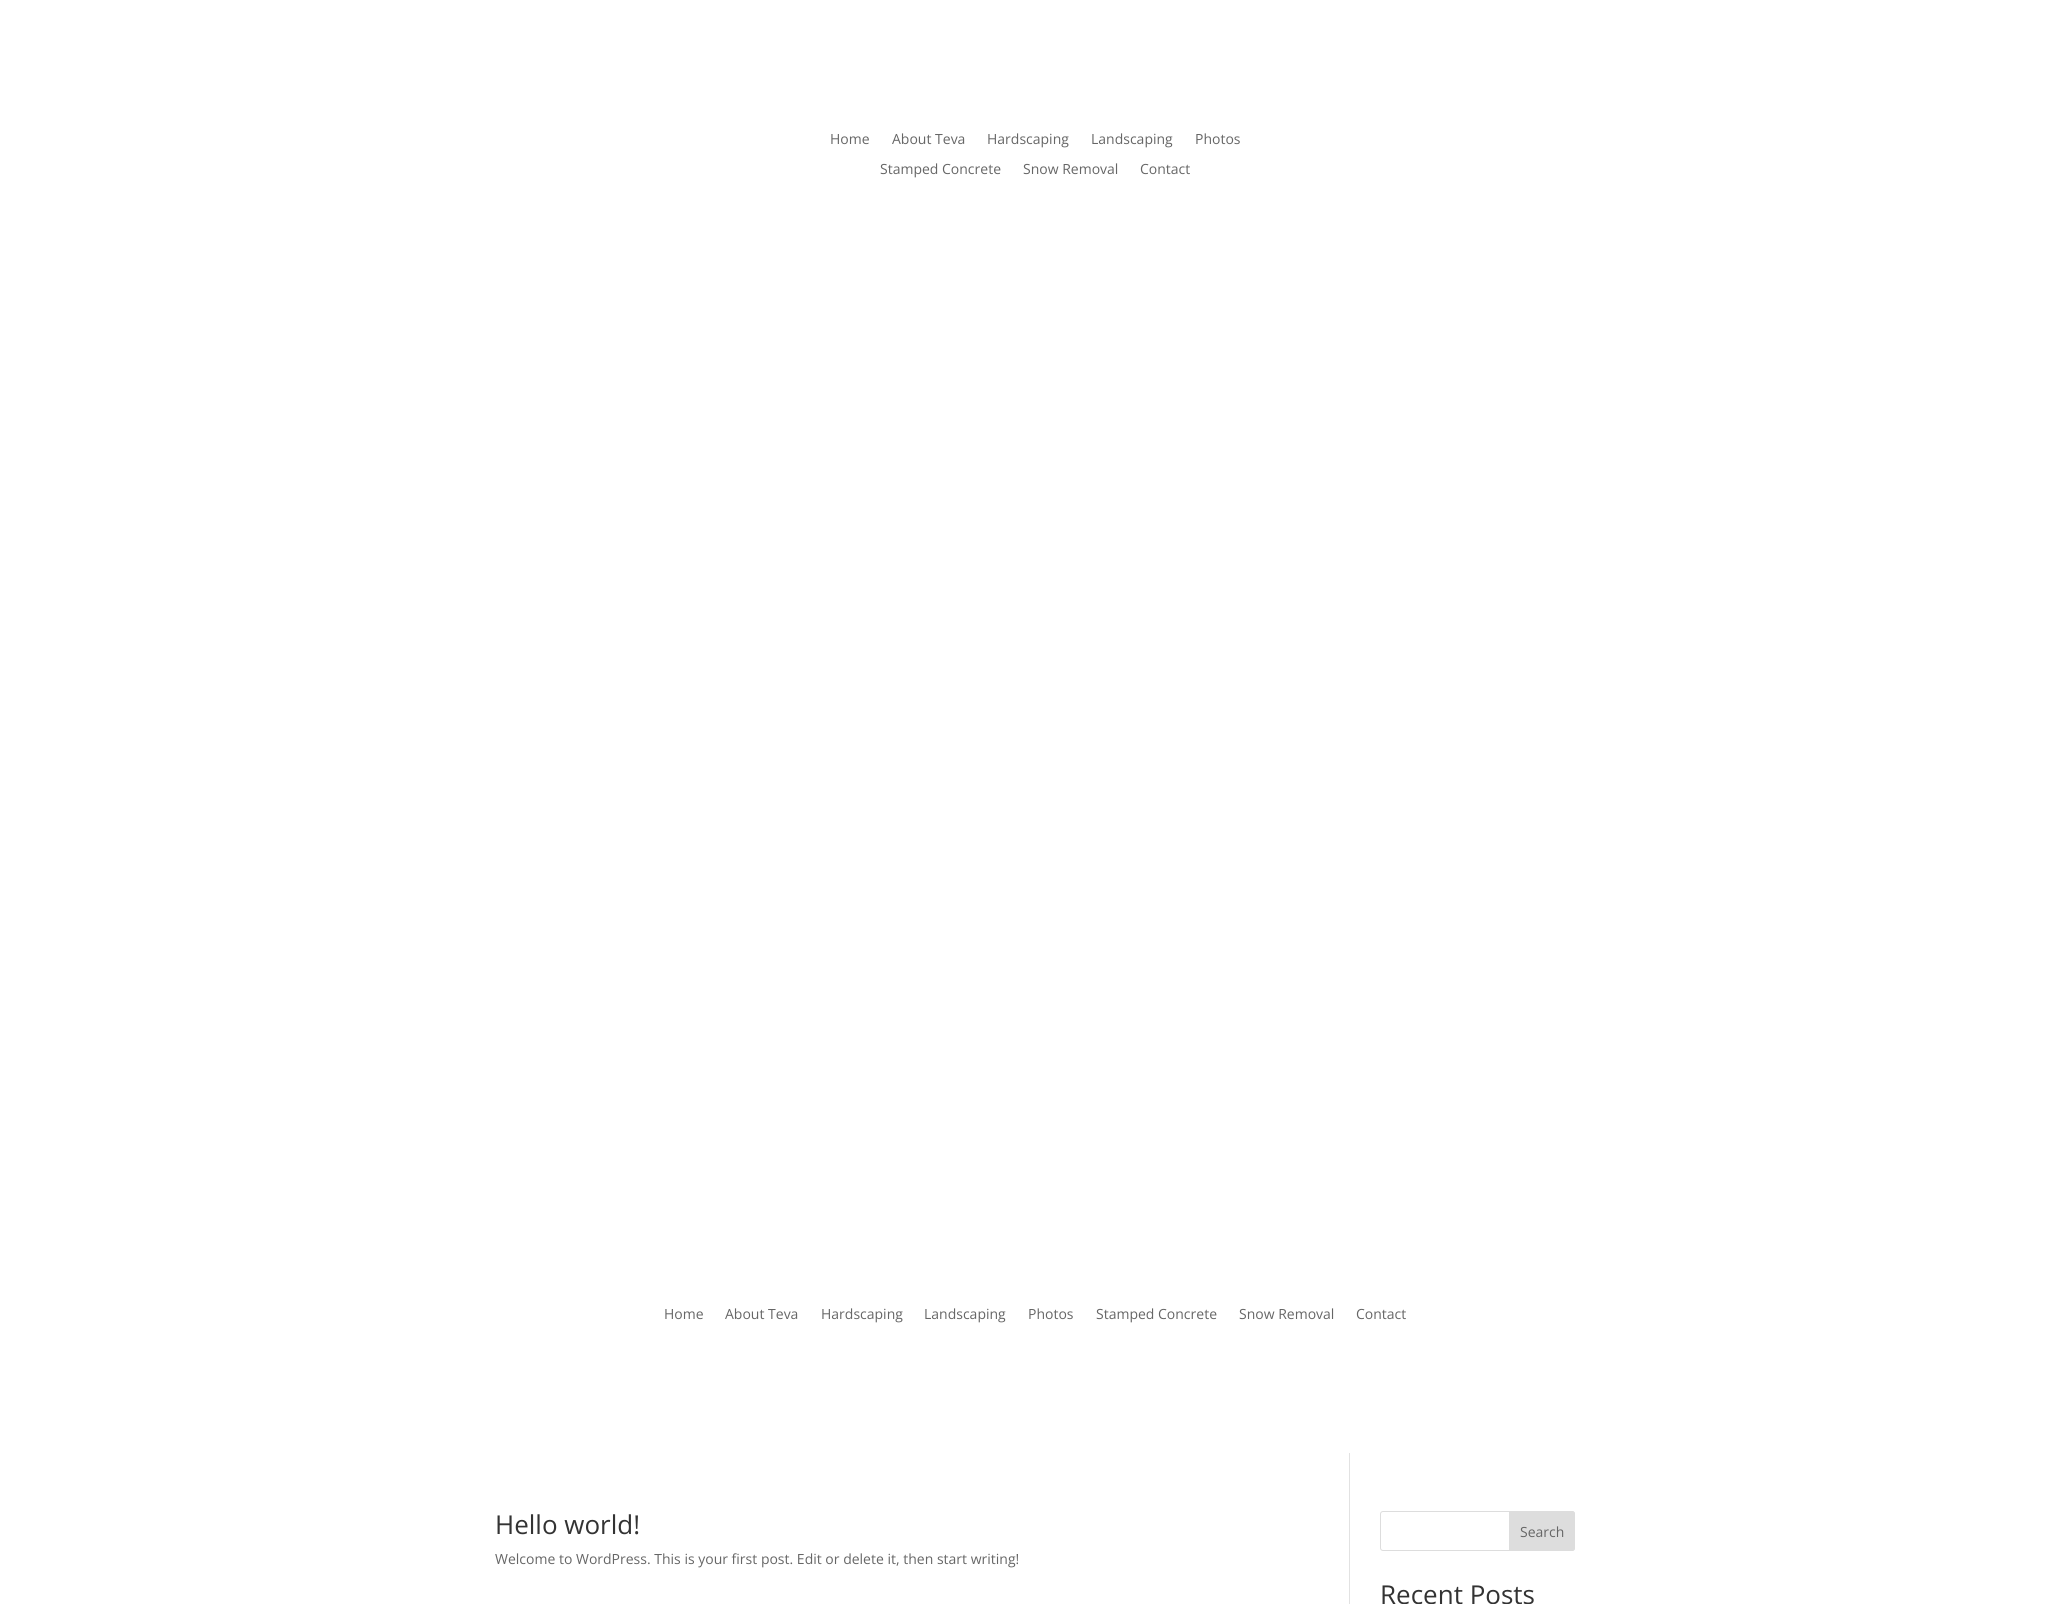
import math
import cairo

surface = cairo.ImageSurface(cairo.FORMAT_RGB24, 2070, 1604)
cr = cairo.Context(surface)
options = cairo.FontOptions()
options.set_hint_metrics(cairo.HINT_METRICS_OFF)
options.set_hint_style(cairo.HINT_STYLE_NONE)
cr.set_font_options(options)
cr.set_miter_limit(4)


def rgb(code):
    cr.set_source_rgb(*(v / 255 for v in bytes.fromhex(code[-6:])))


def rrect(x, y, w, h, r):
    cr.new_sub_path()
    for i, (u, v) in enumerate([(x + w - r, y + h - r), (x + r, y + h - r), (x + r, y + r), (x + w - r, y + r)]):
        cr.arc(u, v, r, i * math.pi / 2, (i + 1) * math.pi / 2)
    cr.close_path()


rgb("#ffffff")
cr.paint()
rgb("#e2e2e2")
cr.rectangle(1349, 1453, 1, 151)
cr.fill()
rrect(1380.5, 1511.5, 194, 39, 2.5)
rgb("#dddddd")
cr.set_line_width(1)
cr.stroke()
cr.new_path()
cr.move_to(1509.5, 1511.5)
cr.line_to(1572, 1511.5)
cr.curve_to(1573.5, 1511.5, 1574.5, 1512.5, 1574.5, 1514)
cr.line_to(1574.5, 1548)
cr.curve_to(1574.5, 1549.5, 1573.5, 1550.5, 1572, 1550.5)
cr.line_to(1509.5, 1550.5)
cr.close_path()
cr.fill_preserve()
cr.stroke()
cr.select_font_face("Open Sans")
cr.set_font_size(14)
rgb("#666666")
for x, y, s in [
    (830, 144, "Home"),
    (892, 144, "About Teva"),
    (987, 144, "Hardscaping"),
    (1091, 144, "Landscaping"),
    (1195, 144, "Photos"),
    (880, 174, "Stamped Concrete"),
    (1023, 174, "Snow Removal"),
    (1140, 174, "Contact"),
    (664, 1319, "Home"),
    (725, 1319, "About Teva"),
    (821, 1319, "Hardscaping"),
    (924, 1319, "Landscaping"),
    (1028, 1319, "Photos"),
    (1096, 1319, "Stamped Concrete"),
    (1239, 1319, "Snow Removal"),
    (1356, 1319, "Contact"),
]:
    cr.move_to(x, y)
    cr.show_text(s)
cr.set_font_size(26)
rgb("#333333")
cr.move_to(495, 1534)
cr.show_text("Hello world!")
cr.set_font_size(14)
rgb("#666666")
cr.move_to(495, 1564)
cr.show_text("Welcome to WordPress. This is your first post. Edit or delete it, then start writing!")
cr.move_to(1520, 1537)
cr.show_text("Search")
cr.set_font_size(26)
rgb("#333333")
cr.move_to(1380, 1604)
cr.show_text("Recent Posts")
surface.write_to_png("page.png")
